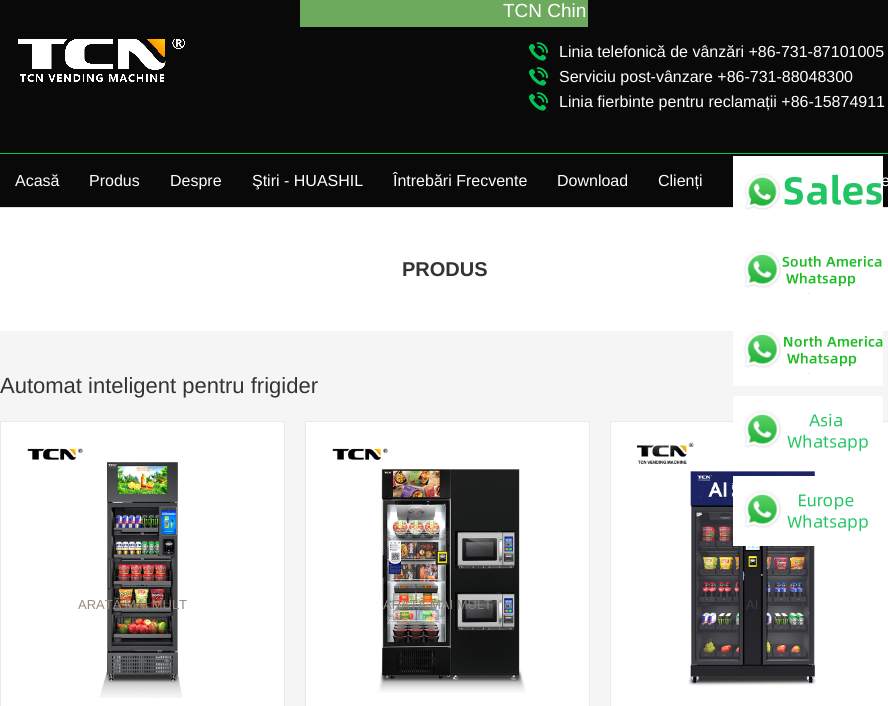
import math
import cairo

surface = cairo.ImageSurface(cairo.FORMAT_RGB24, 888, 706)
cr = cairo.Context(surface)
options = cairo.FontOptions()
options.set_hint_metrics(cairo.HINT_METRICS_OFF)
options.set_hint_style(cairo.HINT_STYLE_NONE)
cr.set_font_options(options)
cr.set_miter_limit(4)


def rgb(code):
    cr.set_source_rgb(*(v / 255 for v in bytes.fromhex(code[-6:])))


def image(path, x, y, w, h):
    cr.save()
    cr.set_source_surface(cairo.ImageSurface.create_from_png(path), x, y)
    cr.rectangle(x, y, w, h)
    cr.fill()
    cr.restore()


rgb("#ffffff")
cr.paint()
for x, y, w, h, color in [
    (0, 0, 888, 153, "#090909"),
    (300, 0, 288, 27, "#6eaa5e"),
    (0, 331, 888, 375, "#f5f5f5"),
]:
    rgb(color)
    cr.rectangle(x, y, w, h)
    cr.fill()
rgb("#ffffff")
cr.rectangle(610.5, 421.5, 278, 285)
cr.fill_preserve()
rgb("#eaeaea")
cr.set_line_width(1)
cr.stroke()
image("img/10.png", 637, 442, 179, 244)
image("img/2.png", 733, 396, 150, 55)
image("img/3.png", 733, 476, 135, 70)
image("img/4.png", 733, 331, 150, 55)
image("img/5.png", 744, 251, 138, 43)
rgb("#01c455")
cr.rectangle(0, 153, 888, 1)
cr.fill()
image("img/6.png", 18, 39, 167, 43)
image("img/7.png", 529, 42, 19, 19)
image("img/7.png", 529, 67, 19, 19)
image("img/7.png", 529, 92, 19, 19)
rgb("#090909")
cr.rectangle(0, 154, 888, 53)
cr.fill()
rgb("#e1e1e0")
cr.rectangle(0, 207, 888, 1)
cr.fill()
rgb("#ffffff")
cr.rectangle(0.5, 421.5, 284, 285)
cr.fill_preserve()
rgb("#eaeaea")
cr.stroke()
image("img/8.png", 27, 448, 156, 250)
rgb("#ffffff")
cr.rectangle(305.5, 421.5, 284, 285)
cr.fill_preserve()
rgb("#eaeaea")
cr.stroke()
image("img/9.png", 332, 448, 193, 245)
cr.select_font_face("Liberation Sans")
cr.set_font_size(19)
rgb("#ffffff")
cr.move_to(503, 17)
cr.show_text("TCN Chin")
cr.set_font_size(16)
for x, y, s in [
    (559, 57, "Linia telefonică de vânzări +86-731-87101005"),
    (559, 82, "Serviciu post-vânzare +86-731-88048300"),
    (559, 107, "Linia fierbinte pentru reclamații +86-15874911"),
    (15, 186, "Acasă"),
    (89, 186, "Produs"),
    (170, 186, "Despre"),
    (252, 186, "Ştiri - HUASHIL"),
    (393, 186, "Întrebări Frecvente"),
    (557, 186, "Download"),
    (658, 186, "Clienți"),
    (881, 186, "e"),
]:
    cr.move_to(x, y)
    cr.show_text(s)
image("img/1.png", 733, 156, 150, 54)
cr.select_font_face("Liberation Sans", cairo.FONT_SLANT_NORMAL, cairo.FONT_WEIGHT_BOLD)
cr.set_font_size(20)
rgb("#333333")
cr.move_to(402, 276)
cr.show_text("PRODUS")
cr.select_font_face("Liberation Sans")
cr.set_font_size(22)
cr.move_to(0, 393)
cr.show_text("Automat inteligent pentru frigider")
cr.set_font_size(13)
rgb("#96897f")
cr.move_to(78, 609)
cr.show_text("ARATĂ MAI MULT")
rgb("#87817a")
cr.move_to(383, 609)
cr.show_text("ARATĂ MAI MULT")
rgb("#3e3d42")
cr.move_to(746, 609)
cr.show_text("AI")
surface.write_to_png("page.png")
